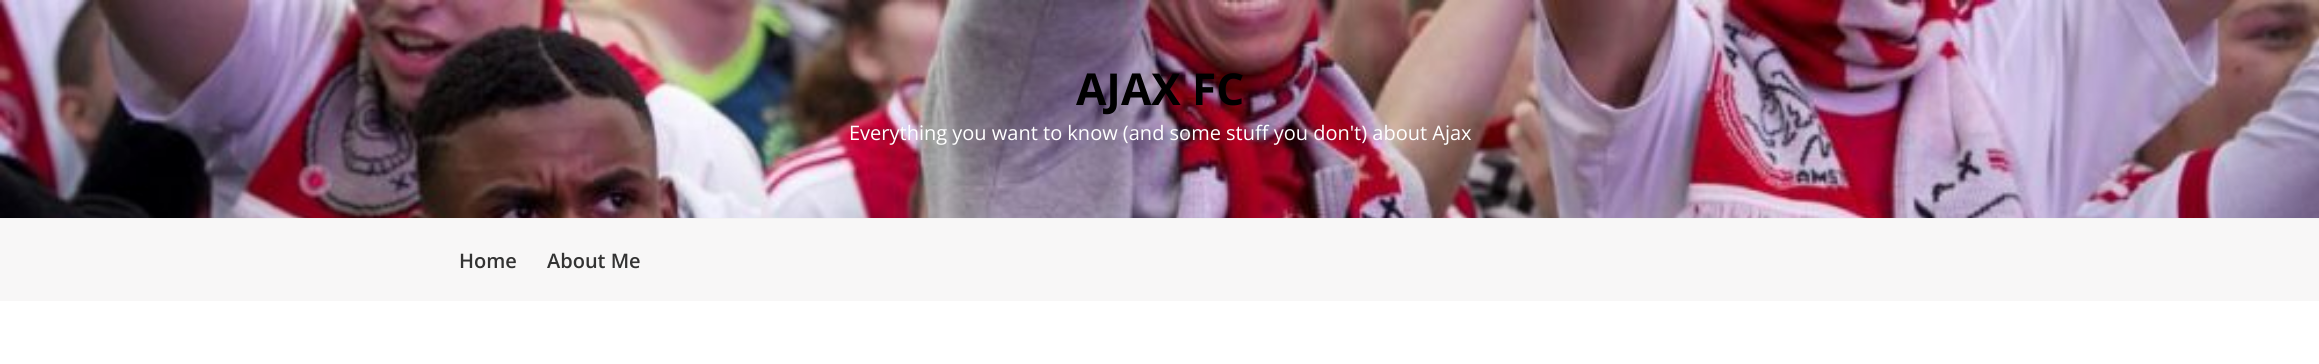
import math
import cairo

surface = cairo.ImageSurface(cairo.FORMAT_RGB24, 2319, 364)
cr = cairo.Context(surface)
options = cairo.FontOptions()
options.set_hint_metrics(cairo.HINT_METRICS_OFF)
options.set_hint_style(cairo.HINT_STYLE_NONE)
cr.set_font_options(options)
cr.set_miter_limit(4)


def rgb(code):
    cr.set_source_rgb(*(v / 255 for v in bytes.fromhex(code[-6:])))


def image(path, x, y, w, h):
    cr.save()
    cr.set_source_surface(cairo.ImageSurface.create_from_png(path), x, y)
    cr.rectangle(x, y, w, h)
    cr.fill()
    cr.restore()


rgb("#ffffff")
cr.paint()
image("img/1.png", 0, 0, 2319, 218)
rgb("#f3f3f3")
cr.rectangle(0, 218, 2319, 1)
cr.fill()
rgb("#f8f7f7")
cr.rectangle(0, 219, 2319, 82)
cr.fill()
cr.select_font_face("Open Sans", cairo.FONT_SLANT_NORMAL, cairo.FONT_WEIGHT_BOLD)
cr.set_font_size(44)
rgb("#000000")
cr.move_to(1076, 105)
cr.show_text("AJAX FC")
cr.select_font_face("Open Sans")
cr.set_font_size(20)
rgb("#ffffff")
cr.move_to(849, 140)
cr.show_text("Everything you want to know (and some stuff you don't) about Ajax")
cr.select_font_face("Open Sans SemiBold")
rgb("#333333")
cr.move_to(459, 268)
cr.show_text("Home")
cr.move_to(547, 268)
cr.show_text("About Me")
surface.write_to_png("page.png")
